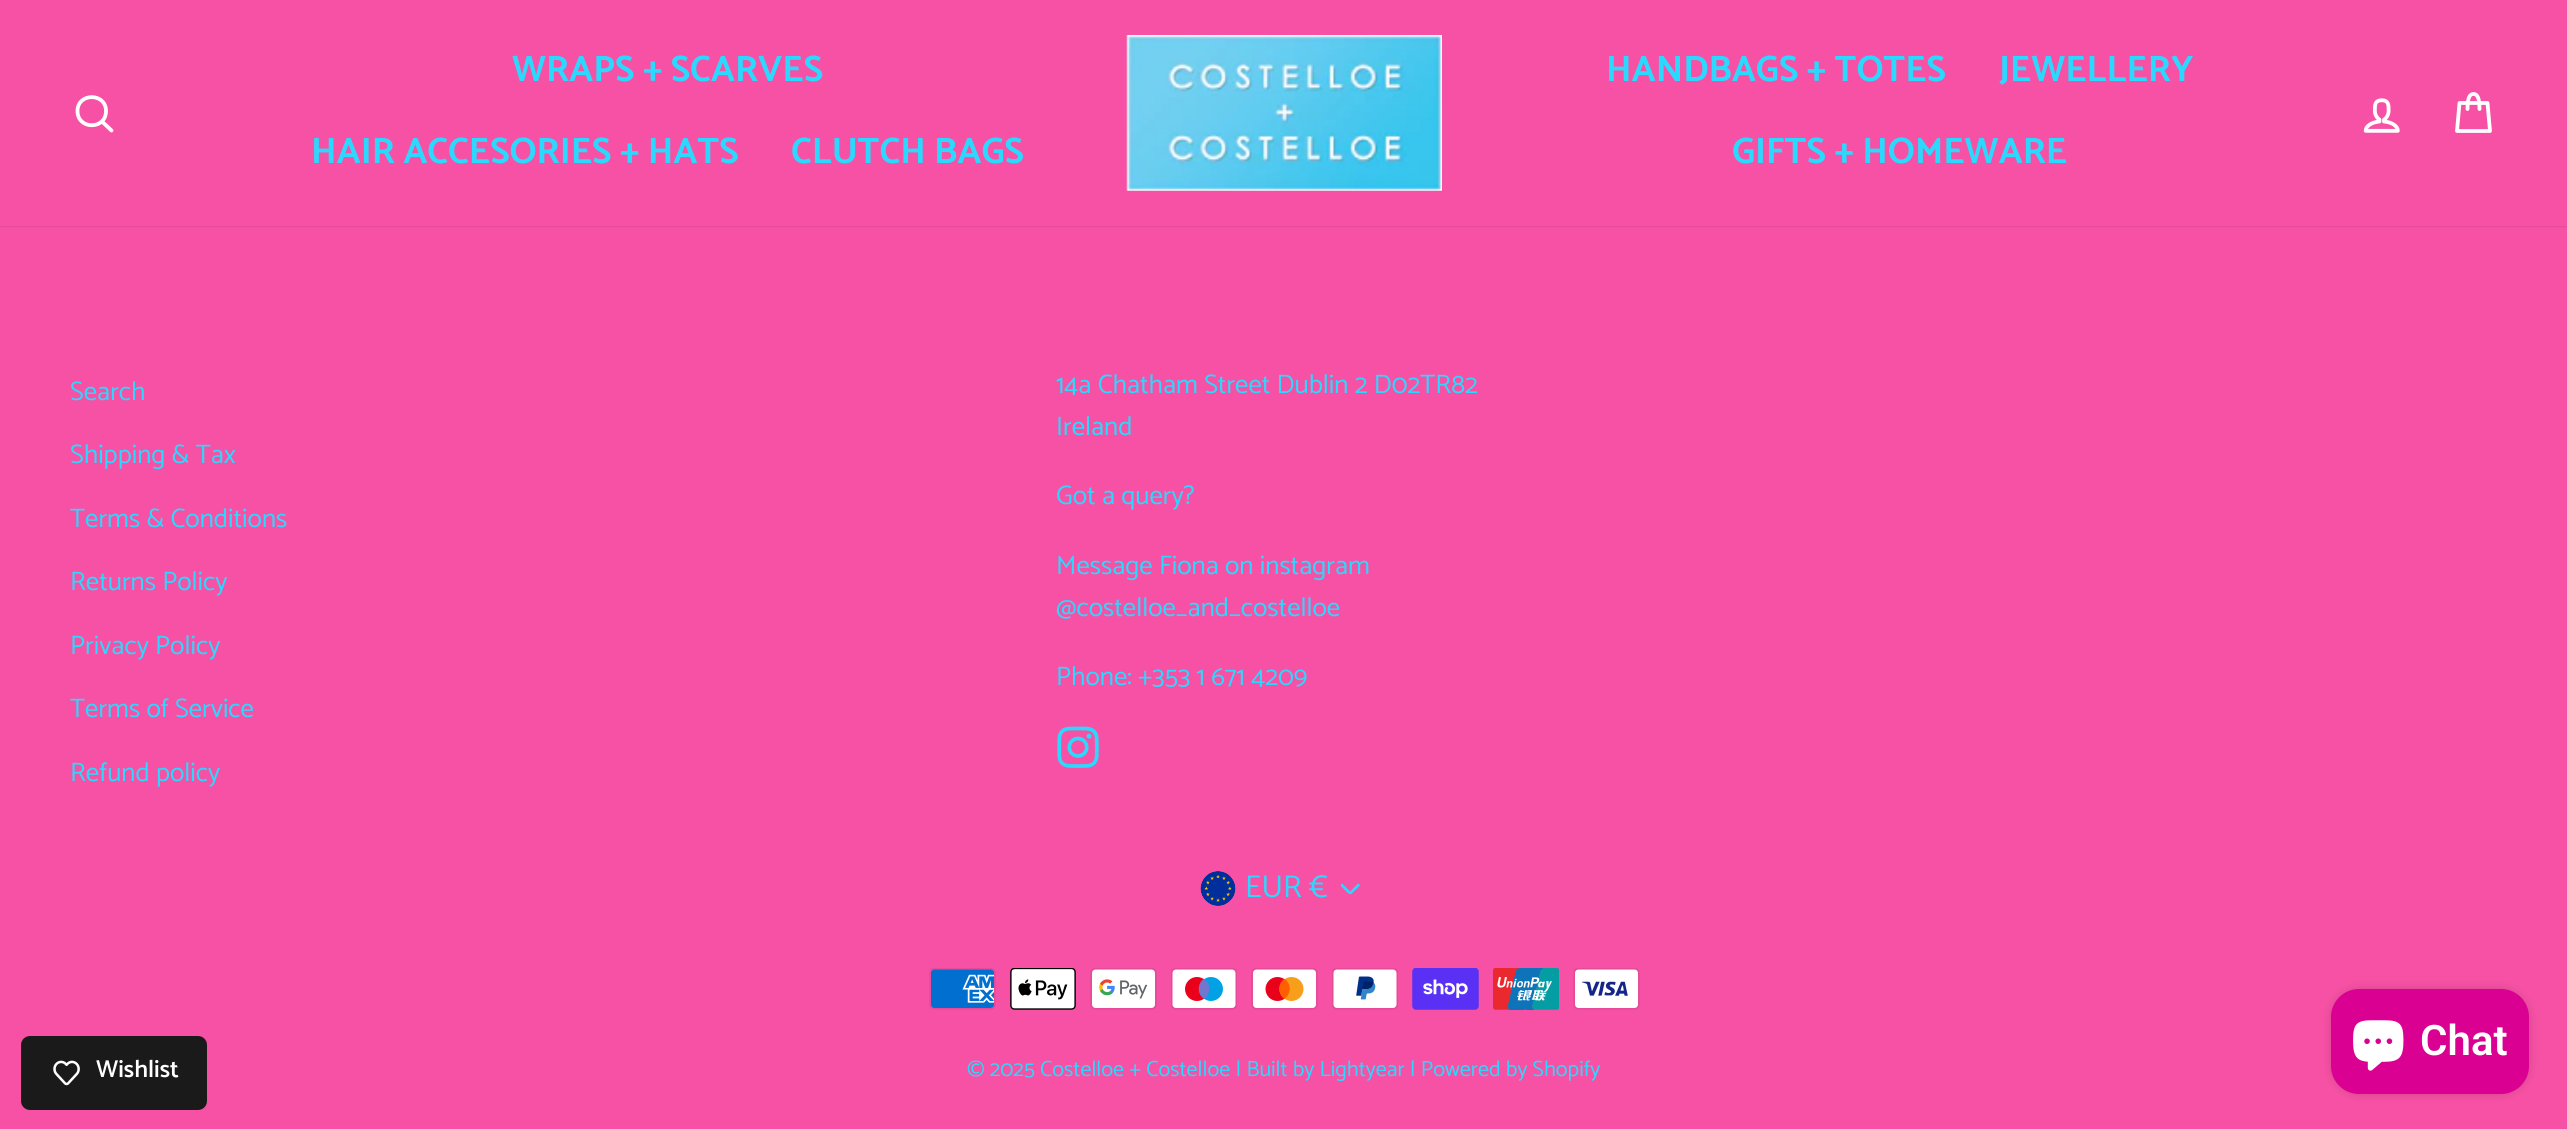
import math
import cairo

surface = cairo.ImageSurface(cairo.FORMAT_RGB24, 2567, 1129)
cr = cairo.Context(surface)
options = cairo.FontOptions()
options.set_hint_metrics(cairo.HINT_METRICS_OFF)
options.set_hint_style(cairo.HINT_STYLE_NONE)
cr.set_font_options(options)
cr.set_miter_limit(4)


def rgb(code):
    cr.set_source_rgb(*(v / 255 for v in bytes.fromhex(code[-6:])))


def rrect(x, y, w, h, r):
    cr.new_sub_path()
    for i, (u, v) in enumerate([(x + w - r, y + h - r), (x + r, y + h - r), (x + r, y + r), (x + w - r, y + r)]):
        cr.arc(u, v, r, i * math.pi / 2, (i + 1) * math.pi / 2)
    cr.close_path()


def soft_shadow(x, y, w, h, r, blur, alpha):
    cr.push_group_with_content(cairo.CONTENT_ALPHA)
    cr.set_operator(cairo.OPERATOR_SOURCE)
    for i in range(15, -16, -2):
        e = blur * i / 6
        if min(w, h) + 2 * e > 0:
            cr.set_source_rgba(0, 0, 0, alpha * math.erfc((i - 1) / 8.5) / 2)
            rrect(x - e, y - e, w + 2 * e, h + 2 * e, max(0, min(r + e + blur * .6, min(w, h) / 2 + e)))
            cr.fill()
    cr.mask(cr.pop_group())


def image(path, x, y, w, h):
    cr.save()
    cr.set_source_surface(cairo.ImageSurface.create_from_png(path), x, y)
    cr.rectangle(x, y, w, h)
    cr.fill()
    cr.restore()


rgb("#f651a4")
cr.paint()
rgb("#000000")
soft_shadow(0, 0, 2567, 226, 0, 1, 0.2)
rgb("#f651a4")
cr.rectangle(0, 0, 2567, 226)
cr.fill()
cr.new_path()
cr.move_to(106, 111)
cr.curve_to(106, 130, 77.5, 130, 77.5, 111)
cr.curve_to(77.5, 92.5, 106, 92.5, 106, 111)
cr.close_path()
cr.move_to(111.5, 130.5)
cr.line_to(102, 121.5)
rgb("#ffffff")
cr.set_line_width(3.8)
cr.set_line_cap(cairo.LINE_CAP_ROUND)
cr.set_line_join(cairo.LINE_JOIN_ROUND)
cr.stroke()
image("img/1.png", 1126, 35, 316, 156)
image("img/2.png", 2363, 98, 37, 35)
cr.new_path()
cr.move_to(2467.5, 109)
cr.curve_to(2467.5, 97, 2470, 94, 2473.5, 94)
cr.curve_to(2477, 94, 2479.5, 97, 2479.5, 109)
cr.move_to(2459.5, 103)
cr.line_to(2487.5, 103)
cr.line_to(2490, 131)
cr.line_to(2457, 131)
cr.close_path()
cr.stroke()
image("img/3.png", 1057, 726, 42, 42)
image("img/4.png", 1341, 884, 19, 10)
image("img/5.png", 1200, 871, 36, 35)
image("img/6.png", 929, 968, 67, 42)
image("img/7.png", 1010, 968, 66, 42)
image("img/8.png", 1090, 968, 67, 42)
image("img/9.png", 1171, 968, 66, 42)
image("img/10.png", 1251, 968, 67, 42)
image("img/11.png", 1332, 968, 66, 42)
image("img/12.png", 1412, 968, 67, 42)
image("img/13.png", 1493, 968, 66, 42)
image("img/14.png", 1573, 968, 67, 42)
rgb("#000000")
soft_shadow(2331, 989, 198, 105, 28, 4.5, 0.15)
rgb("#d90092")
rrect(2331, 989, 198, 105, 28)
cr.fill()
image("img/15.png", 2353, 1020, 51, 51)
rgb("#1a1a1a")
rrect(21, 1036, 186, 74, 9)
cr.fill()
image("img/16.png", 53, 1060, 27, 26)
cr.select_font_face("Catamaran", cairo.FONT_SLANT_NORMAL, cairo.FONT_WEIGHT_BOLD)
cr.set_font_size(36.75)
rgb("#2bd9ff")
for x, y, s in [
    (512, 81, "WRAPS + SCARVES"),
    (311, 163, "HAIR ACCESORIES + HATS"),
    (791, 163, "CLUTCH BAGS"),
    (1606, 81, "HANDBAGS + TOTES"),
    (1999, 81, "JEWELLERY"),
    (1732, 163, "GIFTS + HOMEWARE"),
]:
    cr.move_to(x, y)
    cr.show_text(s)
cr.select_font_face("Catamaran")
cr.set_font_size(26.75)
for x, y, s in [
    (70, 400, "Search"),
    (70, 463, "Shipping & Tax"),
    (70, 527, "Terms & Conditions"),
    (70, 590, "Returns Policy"),
    (70, 654, "Privacy Policy"),
    (70, 717, "Terms of Service"),
    (70, 781, "Refund policy"),
    (1056, 393, "14a Chatham Street Dublin 2 D02TR82"),
    (1056, 435, "Ireland"),
    (1056, 504, "Got a query?"),
    (1056, 574, "Message Fiona on instagram"),
    (1056, 616, "@costelloe_and_costelloe"),
    (1056, 685, "Phone: +353 1 671 4209"),
]:
    cr.move_to(x, y)
    cr.show_text(s)
cr.set_font_size(31.5)
cr.move_to(1245, 897)
cr.show_text("EUR €")
cr.set_font_size(22.05)
cr.move_to(967, 1076)
cr.show_text("© 2025 Costelloe + Costelloe | Built by Lightyear | Powered by Shopify")
cr.select_font_face("Roboto SemiBold")
cr.set_font_size(42)
rgb("#ffffff")
cr.move_to(2420, 1055)
cr.show_text("Chat")
cr.select_font_face("Catamaran SemiBold")
cr.set_font_size(24.5)
cr.move_to(96, 1077)
cr.show_text("Wishlist")
surface.write_to_png("page.png")
